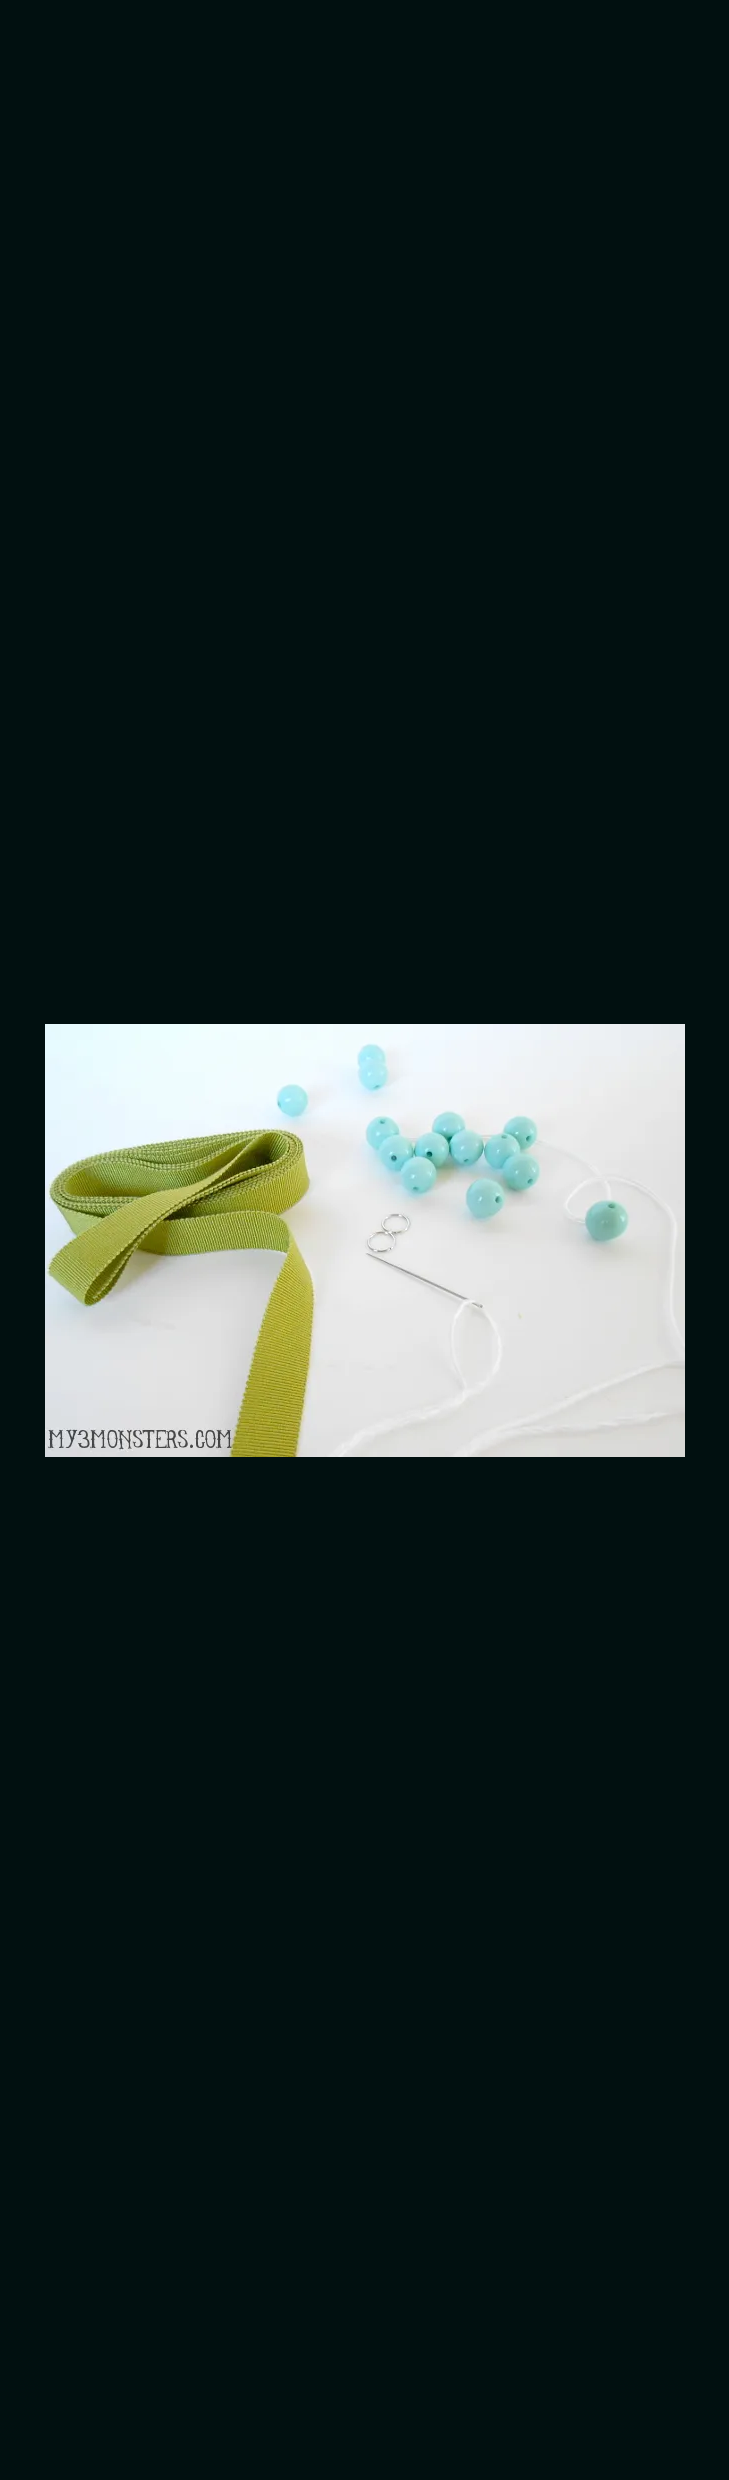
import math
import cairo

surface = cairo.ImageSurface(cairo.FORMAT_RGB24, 729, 2480)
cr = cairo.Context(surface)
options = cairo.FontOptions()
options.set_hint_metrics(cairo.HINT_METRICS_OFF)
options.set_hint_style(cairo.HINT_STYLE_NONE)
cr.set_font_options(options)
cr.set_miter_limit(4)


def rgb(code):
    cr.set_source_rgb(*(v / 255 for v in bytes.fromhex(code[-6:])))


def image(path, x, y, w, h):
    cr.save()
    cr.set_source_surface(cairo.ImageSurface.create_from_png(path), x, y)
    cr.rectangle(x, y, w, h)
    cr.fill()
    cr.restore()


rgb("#011010")
cr.paint()
image("img/1.png", 45, 1024, 640, 433)
surface.write_to_png("page.png")
